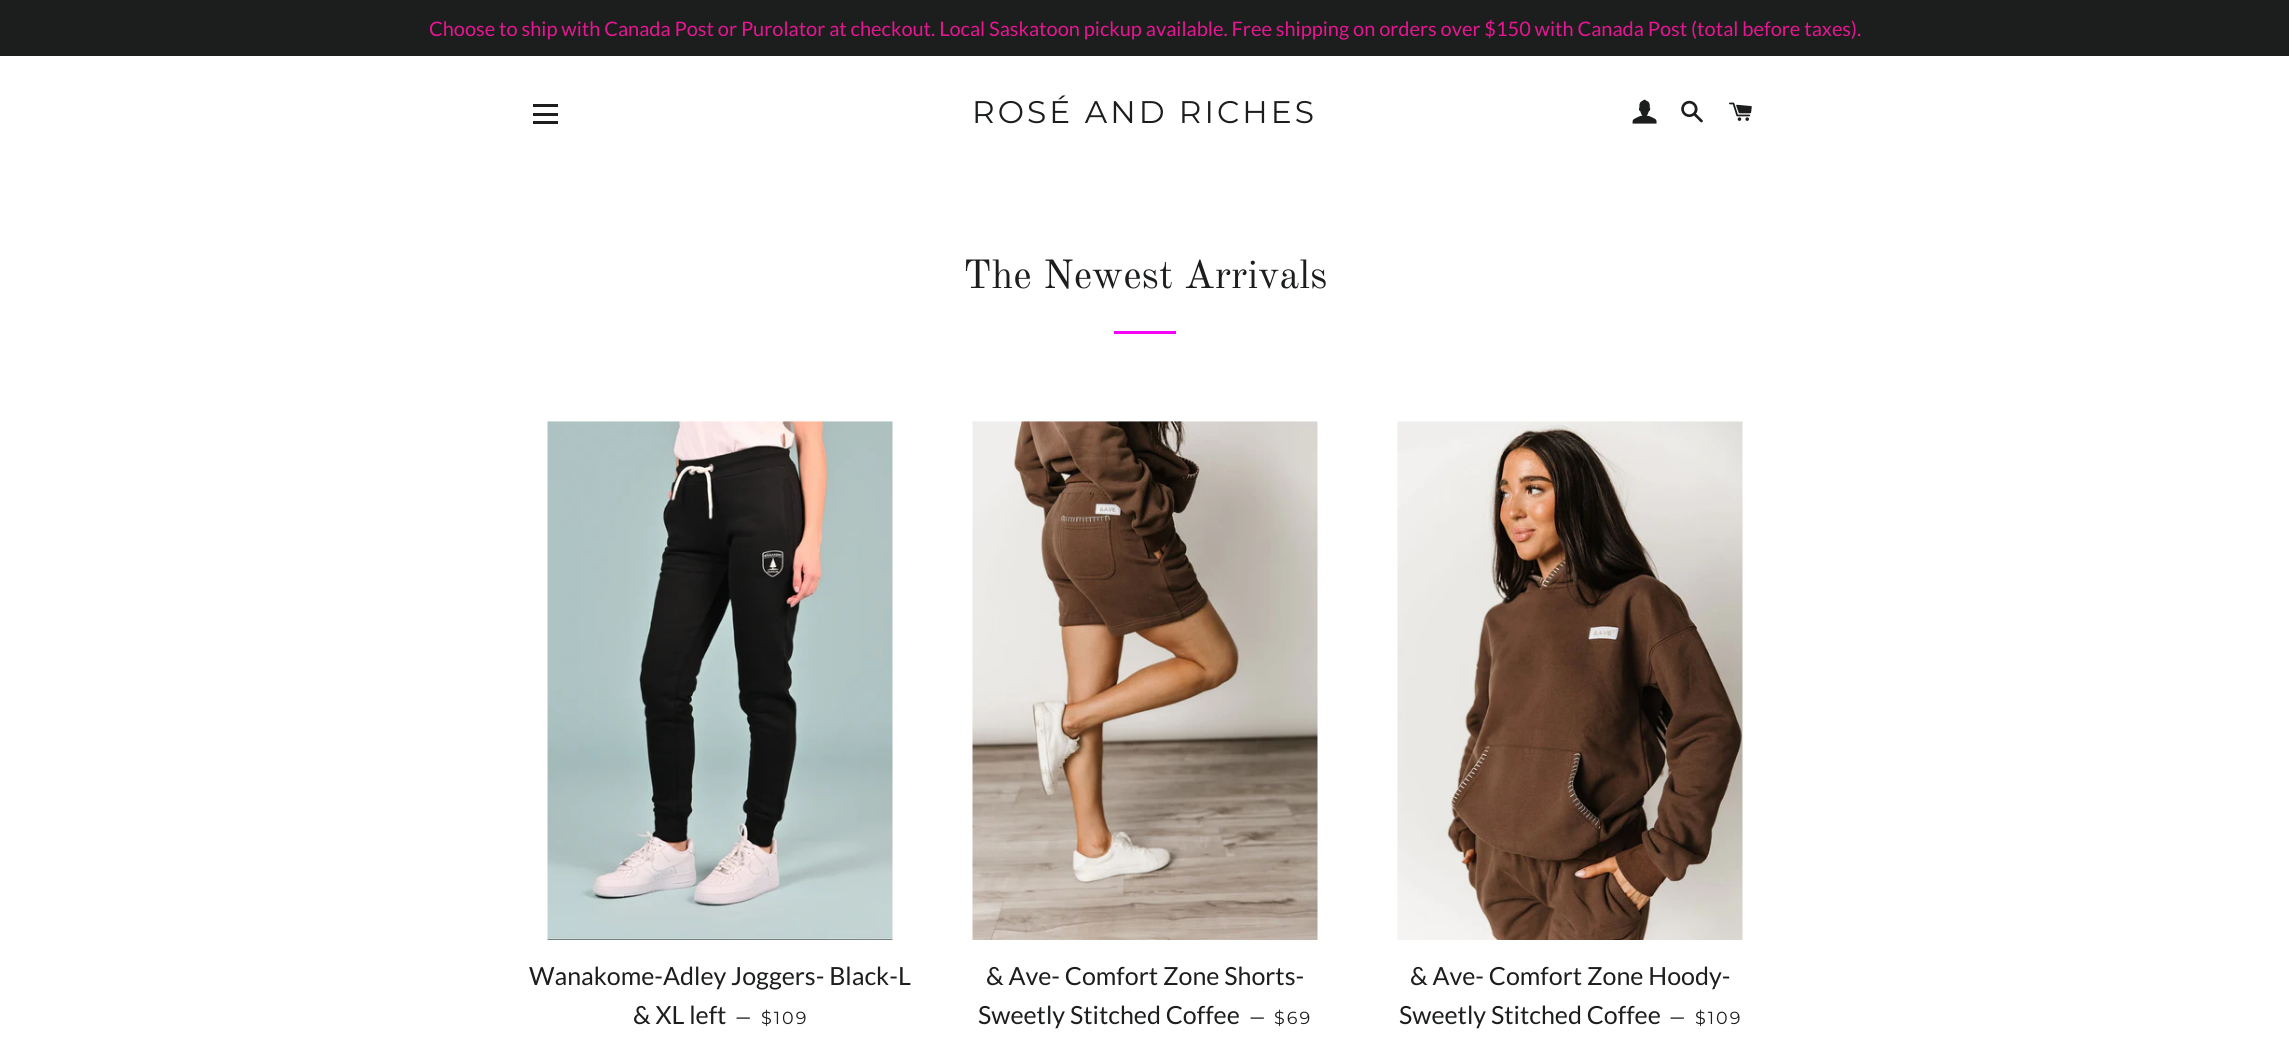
import math
import cairo

surface = cairo.ImageSurface(cairo.FORMAT_RGB24, 2289, 1062)
cr = cairo.Context(surface)
options = cairo.FontOptions()
options.set_hint_metrics(cairo.HINT_METRICS_OFF)
options.set_hint_style(cairo.HINT_STYLE_NONE)
cr.set_font_options(options)
cr.set_miter_limit(4)


def rgb(code):
    cr.set_source_rgb(*(v / 255 for v in bytes.fromhex(code[-6:])))


def tracked(x, y, s, letter, word):
    cr.move_to(x, y)
    for ch in s:
        cr.show_text(ch)
        cr.rel_move_to(letter + word * (ch == ' '), 0)


def image(path, x, y, w, h):
    cr.save()
    cr.set_source_surface(cairo.ImageSurface.create_from_png(path), x, y)
    cr.rectangle(x, y, w, h)
    cr.fill()
    cr.restore()


rgb("#ffffff")
cr.paint()
for x, y, w, h, color in [
    (0, 0, 2289, 56, "#1c1d1d"),
    (533, 104, 25, 3, "#1c1d1d"),
    (533, 113, 25, 3, "#1c1d1d"),
    (533, 121, 25, 3, "#1c1d1d"),
]:
    rgb(color)
    cr.rectangle(x, y, w, h)
    cr.fill()
image("img/1.png", 1632, 99, 25, 25)
image("img/2.png", 1681, 100, 22, 23)
image("img/3.png", 1729, 102, 23, 19)
rgb("#f500f8")
cr.rectangle(1114, 331, 62, 3)
cr.fill()
image("img/4.png", 547, 421, 346, 519)
image("img/5.png", 972, 421, 346, 519)
image("img/6.png", 1397, 421, 346, 519)
cr.select_font_face("Lato")
cr.set_font_size(20)
rgb("#e41691")
cr.move_to(429, 36)
cr.show_text("Choose to ship with Canada Post or Purolator at checkout. Local Saskatoon pickup available. Free shipping on orders over $150 with Canada Post (total before taxes).")
cr.select_font_face("Montserrat Thin")
cr.set_font_size(31.25)
rgb("#1c1d1d")
tracked(972, 123, "ROSÉ AND RICHES", 3.1, 0)
cr.select_font_face("Old Standard TT")
cr.set_font_size(40)
cr.move_to(963, 288)
cr.show_text("The Newest Arrivals")
cr.select_font_face("Lato")
cr.set_font_size(25)
cr.move_to(529, 985)
cr.show_text("Wanakome-Adley Joggers- Black-L")
cr.move_to(633, 1024)
cr.show_text("& XL left")
cr.set_font_size(20)
cr.move_to(735, 1024)
cr.show_text("—")
cr.select_font_face("Montserrat Thin")
cr.set_font_size(17.5)
tracked(761, 1024, "$109", 2, 0)
cr.select_font_face("Lato")
cr.set_font_size(25)
cr.move_to(986, 985)
cr.show_text("& Ave- Comfort Zone Shorts-")
cr.move_to(978, 1024)
cr.show_text("Sweetly Stitched Coffee")
cr.set_font_size(20)
cr.move_to(1249, 1024)
cr.show_text("—")
cr.select_font_face("Montserrat Thin")
cr.set_font_size(17.5)
tracked(1274, 1024, "$69", 2, 0)
cr.select_font_face("Lato")
cr.set_font_size(25)
cr.move_to(1410, 985)
cr.show_text("& Ave- Comfort Zone Hoody-")
cr.move_to(1399, 1024)
cr.show_text("Sweetly Stitched Coffee")
cr.set_font_size(20)
cr.move_to(1669, 1024)
cr.show_text("—")
cr.select_font_face("Montserrat Thin")
cr.set_font_size(17.5)
tracked(1695, 1024, "$109", 2, 0)
surface.write_to_png("page.png")
